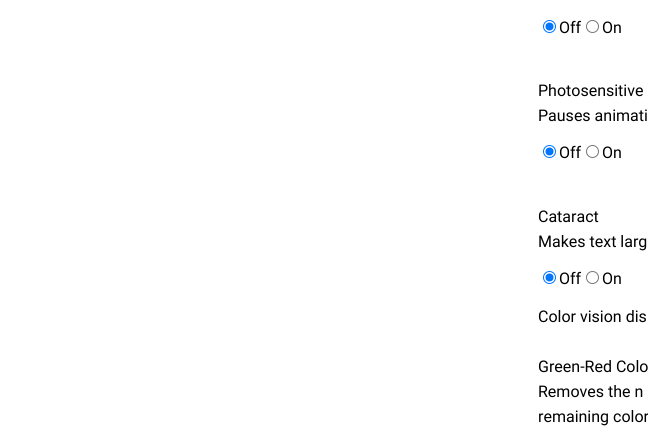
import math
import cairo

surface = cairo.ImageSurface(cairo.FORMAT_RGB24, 648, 447)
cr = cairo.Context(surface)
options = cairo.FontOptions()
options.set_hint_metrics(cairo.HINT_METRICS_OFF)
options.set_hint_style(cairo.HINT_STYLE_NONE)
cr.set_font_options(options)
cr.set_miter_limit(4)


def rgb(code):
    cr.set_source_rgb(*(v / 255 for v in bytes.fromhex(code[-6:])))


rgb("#ffffff")
cr.paint()
cr.arc(549.5, 26.5, 6, 0, 2 * math.pi)
rgb("#0075ff")
cr.set_line_width(1)
cr.stroke()
cr.arc(549.5, 26.5, 4, 0, 2 * math.pi)
cr.fill()
cr.arc(592.5, 26.5, 6, 0, 2 * math.pi)
rgb("#767676")
cr.stroke()
cr.arc(549.5, 151.5, 6, 0, 2 * math.pi)
rgb("#0075ff")
cr.stroke()
cr.arc(549.5, 151.5, 4, 0, 2 * math.pi)
cr.fill()
cr.arc(592.5, 151.5, 6, 0, 2 * math.pi)
rgb("#767676")
cr.stroke()
cr.arc(549.5, 277.5, 6, 0, 2 * math.pi)
rgb("#0075ff")
cr.stroke()
cr.arc(549.5, 277.5, 4, 0, 2 * math.pi)
cr.fill()
cr.arc(592.5, 277.5, 6, 0, 2 * math.pi)
rgb("#767676")
cr.stroke()
cr.select_font_face("Roboto")
cr.set_font_size(16)
rgb("#000000")
for x, y, s in [
    (559, 33, "Off"),
    (602, 33, "On"),
    (538, 96, "Photosensitive"),
    (538, 121, "Pauses animati"),
    (559, 158, "Off"),
    (602, 158, "On"),
    (538, 222, "Cataract"),
    (538, 247, "Makes text larg"),
    (559, 284, "Off"),
    (602, 284, "On"),
    (538, 322, "Color vision dis"),
    (538, 372, "Green-Red Colo"),
    (538, 397, "Removes the n"),
    (538, 422, "remaining color"),
]:
    cr.move_to(x, y)
    cr.show_text(s)
surface.write_to_png("page.png")
